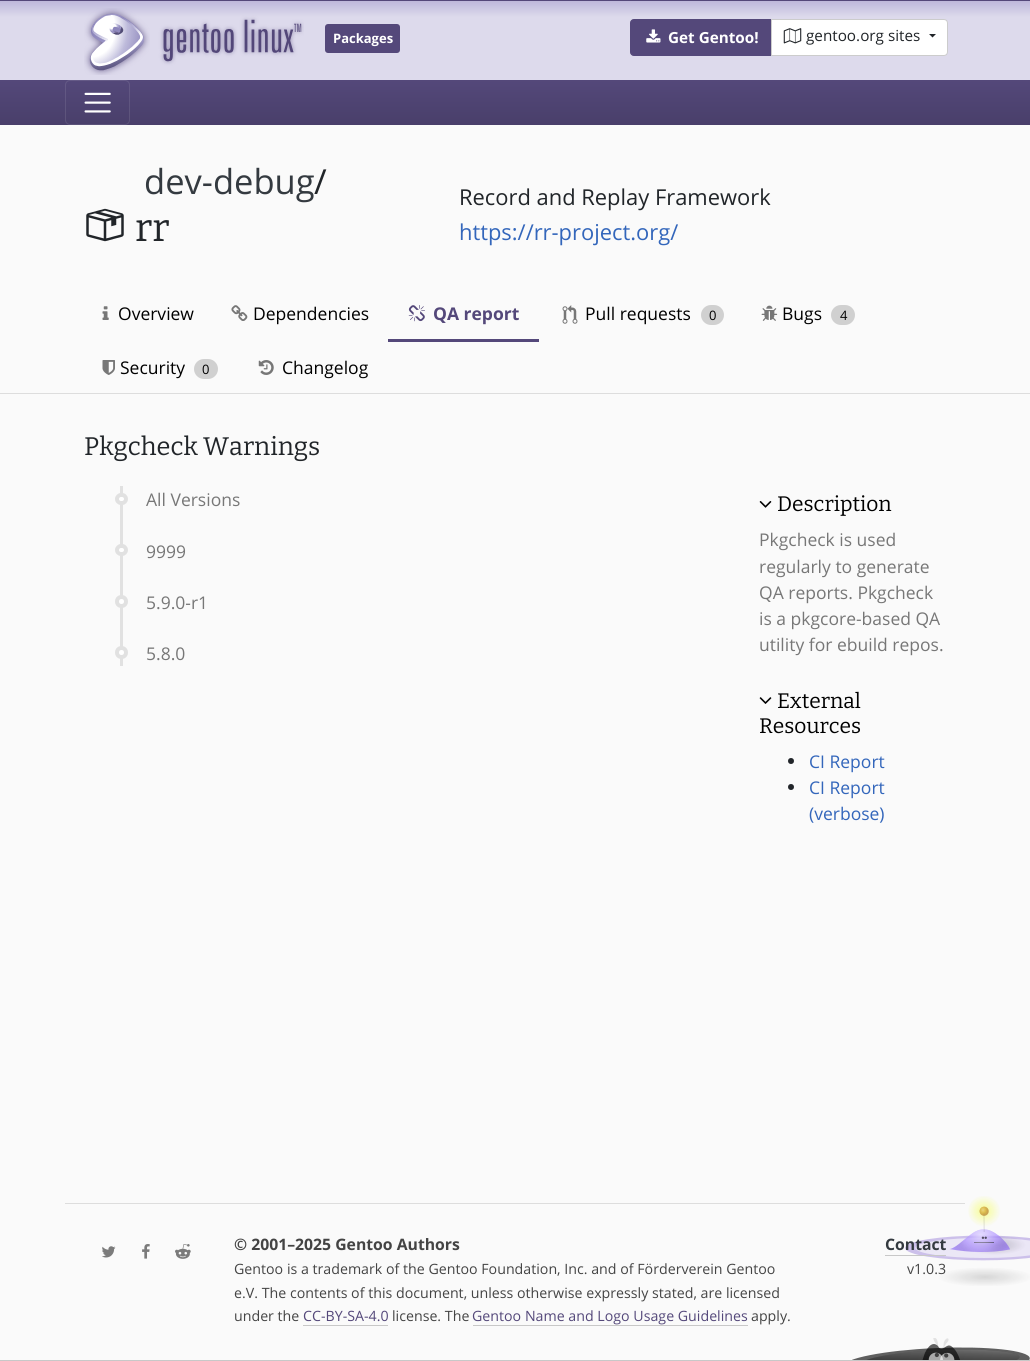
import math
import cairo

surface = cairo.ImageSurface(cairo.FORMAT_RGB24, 1030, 1361)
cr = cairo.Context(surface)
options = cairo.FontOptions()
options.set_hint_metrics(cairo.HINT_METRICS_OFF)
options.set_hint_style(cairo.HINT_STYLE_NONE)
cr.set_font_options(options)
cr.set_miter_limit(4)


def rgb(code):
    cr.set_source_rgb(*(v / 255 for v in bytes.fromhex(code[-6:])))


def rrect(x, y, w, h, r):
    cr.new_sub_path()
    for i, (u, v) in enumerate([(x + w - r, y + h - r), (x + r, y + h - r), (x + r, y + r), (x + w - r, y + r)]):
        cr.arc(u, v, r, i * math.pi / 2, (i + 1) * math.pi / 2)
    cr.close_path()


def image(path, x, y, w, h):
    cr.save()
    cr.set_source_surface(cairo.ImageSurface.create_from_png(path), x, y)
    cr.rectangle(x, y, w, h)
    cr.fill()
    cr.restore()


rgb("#fafafa")
cr.paint()
rgb("#54487a")
cr.rectangle(0, 0, 1030, 1)
cr.fill()
gradient = cairo.LinearGradient(515, 1.2, 515, 80)
gradient.add_color_stop_rgba(0, 0.745, 0.722, 0.859, 1)
gradient.add_color_stop_rgba(0.2, 0.867, 0.855, 0.925, 1)
cr.set_source(gradient)
cr.rectangle(0, 1, 1030, 79)
cr.fill()
image("img/1.png", 84, 8, 220, 67)
rgb("#54487a")
rrect(325, 24, 75, 29, 3)
cr.fill()
cr.new_path()
cr.move_to(634, 19.5)
cr.line_to(772.5, 19.5)
cr.line_to(772.5, 55.5)
cr.line_to(634, 55.5)
cr.curve_to(632, 55.5, 630.5, 54, 630.5, 52)
cr.line_to(630.5, 23)
cr.curve_to(630.5, 21, 632, 19.5, 634, 19.5)
cr.close_path()
cr.fill_preserve()
cr.set_line_width(1)
cr.stroke()
image("img/2.png", 646, 29, 15, 14)
rgb("#ffffff")
cr.new_path()
cr.move_to(771.5, 19.5)
cr.line_to(944, 19.5)
cr.curve_to(946, 19.5, 947.5, 21, 947.5, 23)
cr.line_to(947.5, 52)
cr.curve_to(947.5, 54, 946, 55.5, 944, 55.5)
cr.line_to(771.5, 55.5)
cr.close_path()
cr.fill_preserve()
rgb("#cccccc")
cr.stroke()
image("img/3.png", 783, 28, 19, 16)
rgb("#212529")
cr.new_path()
cr.move_to(929, 34)
cr.line_to(936, 34)
cr.line_to(932.5, 37.5)
cr.close_path()
cr.fill()
gradient = cairo.LinearGradient(515, 80, 515, 125)
gradient.add_color_stop_rgba(0, 0.329, 0.282, 0.478, 1)
gradient.add_color_stop_rgba(1, 0.286, 0.247, 0.416, 1)
cr.set_source(gradient)
cr.rectangle(0, 80, 1030, 45)
cr.fill()
rrect(65.5, 80.5, 64, 44, 4.5)
cr.set_source_rgba(1, 1, 1, 0.1)
cr.stroke()
image("img/4.png", 84, 92, 27, 21)
image("img/5.png", 86, 208, 38, 34)
image("img/6.png", 102, 306, 7, 14)
image("img/7.png", 231, 305, 17, 16)
rgb("#54487a")
cr.rectangle(388, 339, 151, 3)
cr.fill()
image("img/8.png", 408, 305, 17, 17)
image("img/9.png", 562, 305, 16, 19)
rgb("#d0d0d0")
rrect(701, 305, 23, 20, 10)
cr.fill()
image("img/10.png", 761, 305, 17, 16)
rrect(831, 305, 24, 20, 10)
cr.fill()
image("img/11.png", 102, 360, 13, 15)
rrect(194, 359, 24, 20, 10)
cr.fill()
image("img/12.png", 258, 360, 16, 15)
rgb("#dddddd")
cr.rectangle(0, 393, 1030, 1)
cr.fill()
rgb("#e1e1e1")
cr.rectangle(120, 486, 3, 180)
cr.fill()
rgb("#ffffff")
rrect(117, 495, 9, 8, 4)
cr.fill_preserve()
rgb("#e1e1e1")
cr.set_line_width(4)
cr.stroke()
rgb("#ffffff")
rrect(117, 546, 9, 8, 4)
cr.fill_preserve()
rgb("#e1e1e1")
cr.stroke()
rgb("#ffffff")
cr.arc(121.5, 601.5, 4.5, 0, 2 * math.pi)
cr.fill_preserve()
rgb("#e1e1e1")
cr.stroke()
rgb("#ffffff")
cr.arc(121.5, 652.5, 4.5, 0, 2 * math.pi)
cr.fill_preserve()
rgb("#e1e1e1")
cr.stroke()
image("img/13.png", 759, 501, 13, 7)
image("img/14.png", 759, 697, 13, 7)
rgb("#212529")
cr.arc(791, 761, 3, 0, 2 * math.pi)
cr.fill()
cr.arc(791, 787, 3, 0, 2 * math.pi)
cr.fill()
image("img/15.png", 905, 1196, 125, 90)
image("img/16.png", 852, 1338, 178, 22)
rgb("#c8c8c8")
cr.rectangle(0, 1360, 1030, 1)
cr.fill()
rgb("#dddddd")
cr.rectangle(65, 1203, 900, 1)
cr.fill()
image("img/17.png", 102, 1246, 14, 12)
image("img/18.png", 142, 1244, 8, 15)
image("img/19.png", 175, 1244, 16, 15)
for x, y, w, h, color in [
    (303, 1325, 85, 1, "#c8c8c8"),
    (473, 1325, 275, 1, "#c8c8c8"),
    (885, 1255, 61, 1, "#c8c8c8"),
]:
    rgb(color)
    cr.rectangle(x, y, w, h)
    cr.fill()
cr.select_font_face("Open Sans", cairo.FONT_SLANT_NORMAL, cairo.FONT_WEIGHT_BOLD)
cr.set_font_size(13)
rgb("#ffffff")
cr.move_to(333, 43)
cr.show_text("Packages")
cr.set_font_size(15.25)
cr.move_to(668, 43)
cr.show_text("Get Gentoo!")
cr.select_font_face("Open Sans")
rgb("#212529")
cr.move_to(806, 41)
cr.show_text("gentoo.org sites")
cr.set_font_size(34.5)
rgb("#343a40")
cr.move_to(144, 194)
cr.show_text("dev-debug")
rgb("#212529")
cr.move_to(314, 194)
cr.show_text("/")
cr.select_font_face("Bitter")
cr.set_font_size(39)
cr.move_to(135, 241)
cr.show_text("rr")
cr.select_font_face("Open Sans")
cr.set_font_size(21.9)
cr.move_to(459, 205)
cr.show_text("Record and Replay Framework")
rgb("#3366bb")
cr.move_to(459, 240)
cr.show_text("https://rr-project.org/")
cr.set_font_size(17.5)
rgb("#000000")
cr.move_to(118, 320)
cr.show_text("Overview")
cr.move_to(253, 320)
cr.show_text("Dependencies")
cr.select_font_face("Open Sans", cairo.FONT_SLANT_NORMAL, cairo.FONT_WEIGHT_BOLD)
rgb("#54487a")
cr.move_to(433, 320)
cr.show_text("QA report")
cr.select_font_face("Open Sans")
rgb("#000000")
cr.move_to(585, 320)
cr.show_text("Pull requests")
cr.set_font_size(13)
cr.move_to(709, 320)
cr.show_text("0")
cr.set_font_size(17.5)
cr.move_to(782, 320)
cr.show_text("Bugs")
cr.set_font_size(13)
cr.move_to(840, 320)
cr.show_text("4")
cr.set_font_size(17.5)
cr.move_to(120, 374)
cr.show_text("Security")
cr.set_font_size(13)
cr.move_to(202, 374)
cr.show_text("0")
cr.set_font_size(17.5)
cr.move_to(282, 374)
cr.show_text("Changelog")
cr.select_font_face("Bitter")
cr.set_font_size(25.4)
rgb("#212529")
cr.move_to(84, 455)
cr.show_text("Pkgcheck Warnings")
cr.select_font_face("Open Sans")
cr.set_font_size(17.5)
rgb("#777777")
for x, y, s in [
    (146, 506, "All Versions"),
    (146, 558, "9999"),
    (146, 609, "5.9.0-r1"),
    (146, 660, "5.8.0"),
]:
    cr.move_to(x, y)
    cr.show_text(s)
cr.select_font_face("Bitter")
cr.set_font_size(21)
rgb("#000000")
cr.move_to(777, 511)
cr.show_text("Description")
cr.select_font_face("Open Sans")
cr.set_font_size(17.5)
rgb("#777777")
for x, y, s in [
    (759, 546, "Pkgcheck is used"),
    (759, 573, "regularly to generate"),
    (759, 599, "QA reports. Pkgcheck"),
    (759, 625, "is a pkgcore-based QA"),
    (759, 651, "utility for ebuild repos."),
]:
    cr.move_to(x, y)
    cr.show_text(s)
cr.select_font_face("Bitter")
cr.set_font_size(21)
rgb("#000000")
cr.move_to(777, 708)
cr.show_text("External")
cr.move_to(759, 733)
cr.show_text("Resources")
cr.select_font_face("Open Sans")
cr.set_font_size(17.5)
rgb("#3366bb")
for x, y, s in [
    (809, 768, "CI Report"),
    (809, 794, "CI Report"),
    (809, 820, "(verbose)"),
]:
    cr.move_to(x, y)
    cr.show_text(s)
cr.select_font_face("Open Sans", cairo.FONT_SLANT_NORMAL, cairo.FONT_WEIGHT_BOLD)
cr.set_font_size(15.75)
rgb("#444444")
cr.move_to(234, 1250)
cr.show_text("© 2001–2025 Gentoo Authors")
cr.select_font_face("Open Sans")
cr.set_font_size(14.2)
for x, y, s in [
    (234, 1274, "Gentoo is a trademark of the Gentoo Foundation, Inc. and of Förderverein Gentoo"),
    (234, 1298, "e.V. The contents of this document, unless otherwise expressly stated, are licensed"),
    (234, 1321, "under the"),
]:
    cr.move_to(x, y)
    cr.show_text(s)
rgb("#54487a")
cr.move_to(303, 1321)
cr.show_text("CC-BY-SA-4.0")
rgb("#444444")
cr.move_to(392, 1321)
cr.show_text("license. The")
rgb("#54487a")
cr.move_to(472, 1321)
cr.show_text("Gentoo Name and Logo Usage Guidelines")
rgb("#444444")
cr.move_to(751, 1321)
cr.show_text("apply.")
cr.select_font_face("Open Sans", cairo.FONT_SLANT_NORMAL, cairo.FONT_WEIGHT_BOLD)
cr.set_font_size(15.75)
rgb("#343a40")
cr.move_to(885, 1250)
cr.show_text("Contact")
cr.select_font_face("Open Sans")
cr.set_font_size(14.2)
rgb("#444444")
cr.move_to(907, 1274)
cr.show_text("v1.0.3")
surface.write_to_png("page.png")
